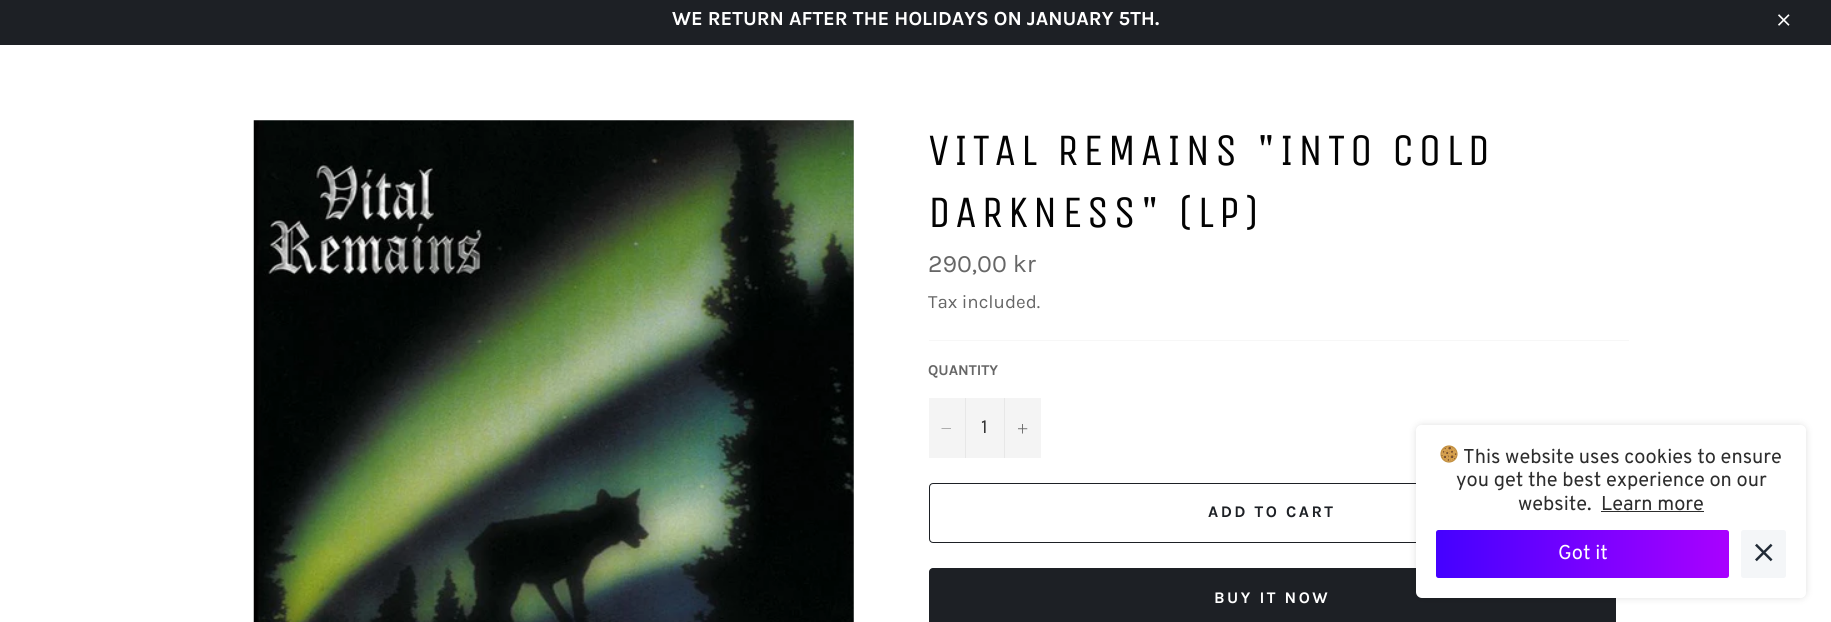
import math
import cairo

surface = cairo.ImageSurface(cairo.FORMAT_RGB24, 1831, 622)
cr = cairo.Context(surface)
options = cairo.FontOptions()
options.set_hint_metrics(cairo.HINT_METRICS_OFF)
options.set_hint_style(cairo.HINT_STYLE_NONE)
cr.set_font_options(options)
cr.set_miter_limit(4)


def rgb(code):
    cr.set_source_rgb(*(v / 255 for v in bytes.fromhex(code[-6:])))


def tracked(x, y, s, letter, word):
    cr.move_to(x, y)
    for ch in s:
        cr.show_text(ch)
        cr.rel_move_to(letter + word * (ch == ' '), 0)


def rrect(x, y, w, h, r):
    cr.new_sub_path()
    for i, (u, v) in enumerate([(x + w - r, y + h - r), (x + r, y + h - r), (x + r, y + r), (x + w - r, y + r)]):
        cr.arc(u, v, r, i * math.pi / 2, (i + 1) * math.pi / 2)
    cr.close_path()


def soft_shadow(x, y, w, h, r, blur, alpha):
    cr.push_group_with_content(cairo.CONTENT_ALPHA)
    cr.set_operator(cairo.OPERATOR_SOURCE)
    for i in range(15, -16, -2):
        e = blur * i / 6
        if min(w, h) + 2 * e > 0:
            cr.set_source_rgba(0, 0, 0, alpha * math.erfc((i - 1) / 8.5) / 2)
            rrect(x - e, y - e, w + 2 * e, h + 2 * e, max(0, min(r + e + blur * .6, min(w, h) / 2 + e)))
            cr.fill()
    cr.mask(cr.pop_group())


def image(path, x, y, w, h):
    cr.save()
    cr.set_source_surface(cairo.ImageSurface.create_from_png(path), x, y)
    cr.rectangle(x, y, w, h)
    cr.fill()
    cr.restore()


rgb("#1d2025")
cr.paint()
image("img/1.png", 1778, 14, 12, 12)
rgb("#ffffff")
cr.rectangle(0, 45, 1831, 577)
cr.fill()
image("img/2.png", 253, 120, 601, 502)
for x, y, w, h, color in [
    (929, 340, 700, 1, "#f7f7f7"),
    (929, 398, 112, 60, "#f4f4f4"),
    (965, 398, 1, 60, "#e7e7e7"),
]:
    rgb(color)
    cr.rectangle(x, y, w, h)
    cr.fill()
rgb("#666666")
cr.set_fill_rule(cairo.FILL_RULE_EVEN_ODD)
cr.new_path()
cr.move_to(951, 428.5)
cr.line_to(951, 429)
cr.line_to(941.5, 429)
cr.line_to(941.5, 428.5)
cr.close_path()
cr.fill()
rgb("#e7e7e7")
cr.rectangle(1004, 398, 1, 60)
cr.fill()
image("img/3.png", 1018, 424, 10, 10)
rrect(929.5, 483.5, 686, 59, 3.5)
rgb("#1d2025")
cr.set_line_width(1)
cr.stroke()
rrect(929, 568, 687, 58, 4)
cr.fill()
rgb("#ffffff")
rrect(1416, 425, 390, 173, 6)
cr.fill()
cr.save()
cr.new_path()
cr.move_to(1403, 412)
cr.line_to(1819, 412)
cr.line_to(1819, 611)
cr.line_to(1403, 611)
cr.close_path()
cr.move_to(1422, 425)
cr.line_to(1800, 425)
cr.curve_to(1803.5, 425, 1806, 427.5, 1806, 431)
cr.line_to(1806, 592)
cr.curve_to(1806, 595.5, 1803.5, 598, 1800, 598)
cr.line_to(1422, 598)
cr.curve_to(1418.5, 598, 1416, 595.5, 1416, 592)
cr.line_to(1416, 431)
cr.curve_to(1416, 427.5, 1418.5, 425, 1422, 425)
cr.close_path()
cr.clip()
rgb("#000000")
soft_shadow(1416, 425, 390, 173, 6, 4, 0.12)
cr.restore()
image("img/4.png", 1440, 445, 18, 18)
rgb("#2d2d2d")
cr.rectangle(1601, 511, 103, 1)
cr.fill()
gradient = cairo.LinearGradient(1436, 554, 1729, 554)
gradient.add_color_stop_rgba(0, 0.267, 0.004, 1, 1)
gradient.add_color_stop_rgba(1, 0.663, 0.004, 1, 1)
cr.set_source(gradient)
rrect(1436, 530, 293, 48, 2.5)
cr.fill()
rgb("#f4f6f8")
rrect(1741, 530, 45, 48, 2.5)
cr.fill()
image("img/5.png", 1755, 543, 18, 19)
cr.select_font_face("Karla", cairo.FONT_SLANT_NORMAL, cairo.FONT_WEIGHT_BOLD)
cr.set_font_size(20)
rgb("#ffffff")
cr.move_to(672, 25)
cr.show_text("WE RETURN AFTER THE HOLIDAYS ON JANUARY 5TH.")
cr.select_font_face("Unica One")
cr.set_font_size(45)
rgb("#030303")
tracked(928, 165, "VITAL REMAINS \"INTO COLD", 4.5, 0)
tracked(928, 227, "DARKNESS\" (LP)", 4.5, 0)
cr.select_font_face("Karla")
cr.set_font_size(25)
rgb("#666666")
cr.move_to(928, 272)
cr.show_text("290,00 kr")
cr.set_font_size(18.75)
cr.move_to(928, 308)
cr.show_text("Tax included.")
cr.select_font_face("Karla", cairo.FONT_SLANT_NORMAL, cairo.FONT_WEIGHT_BOLD)
cr.set_font_size(15)
cr.move_to(928, 375)
cr.show_text("QUANTITY")
cr.select_font_face("Karla")
cr.set_font_size(20)
rgb("#333333")
cr.move_to(981, 433)
cr.show_text("1")
cr.select_font_face("Karla", cairo.FONT_SLANT_NORMAL, cairo.FONT_WEIGHT_BOLD)
cr.set_font_size(16.25)
rgb("#1d2025")
tracked(1208, 517, "ADD TO CART", 2.5, 0)
rgb("#ffffff")
tracked(1214, 603, "BUY IT NOW", 2.5, 0)
cr.select_font_face("Overpass")
cr.set_font_size(20)
rgb("#2d2d2d")
for x, y, s in [
    (1463, 463, "This website uses cookies to ensure"),
    (1456, 486, "you get the best experience on our"),
    (1518, 510, "website."),
    (1601, 510, "Learn more"),
]:
    cr.move_to(x, y)
    cr.show_text(s)
rgb("#ffffff")
cr.move_to(1558, 559)
cr.show_text("Got it")
surface.write_to_png("page.png")
